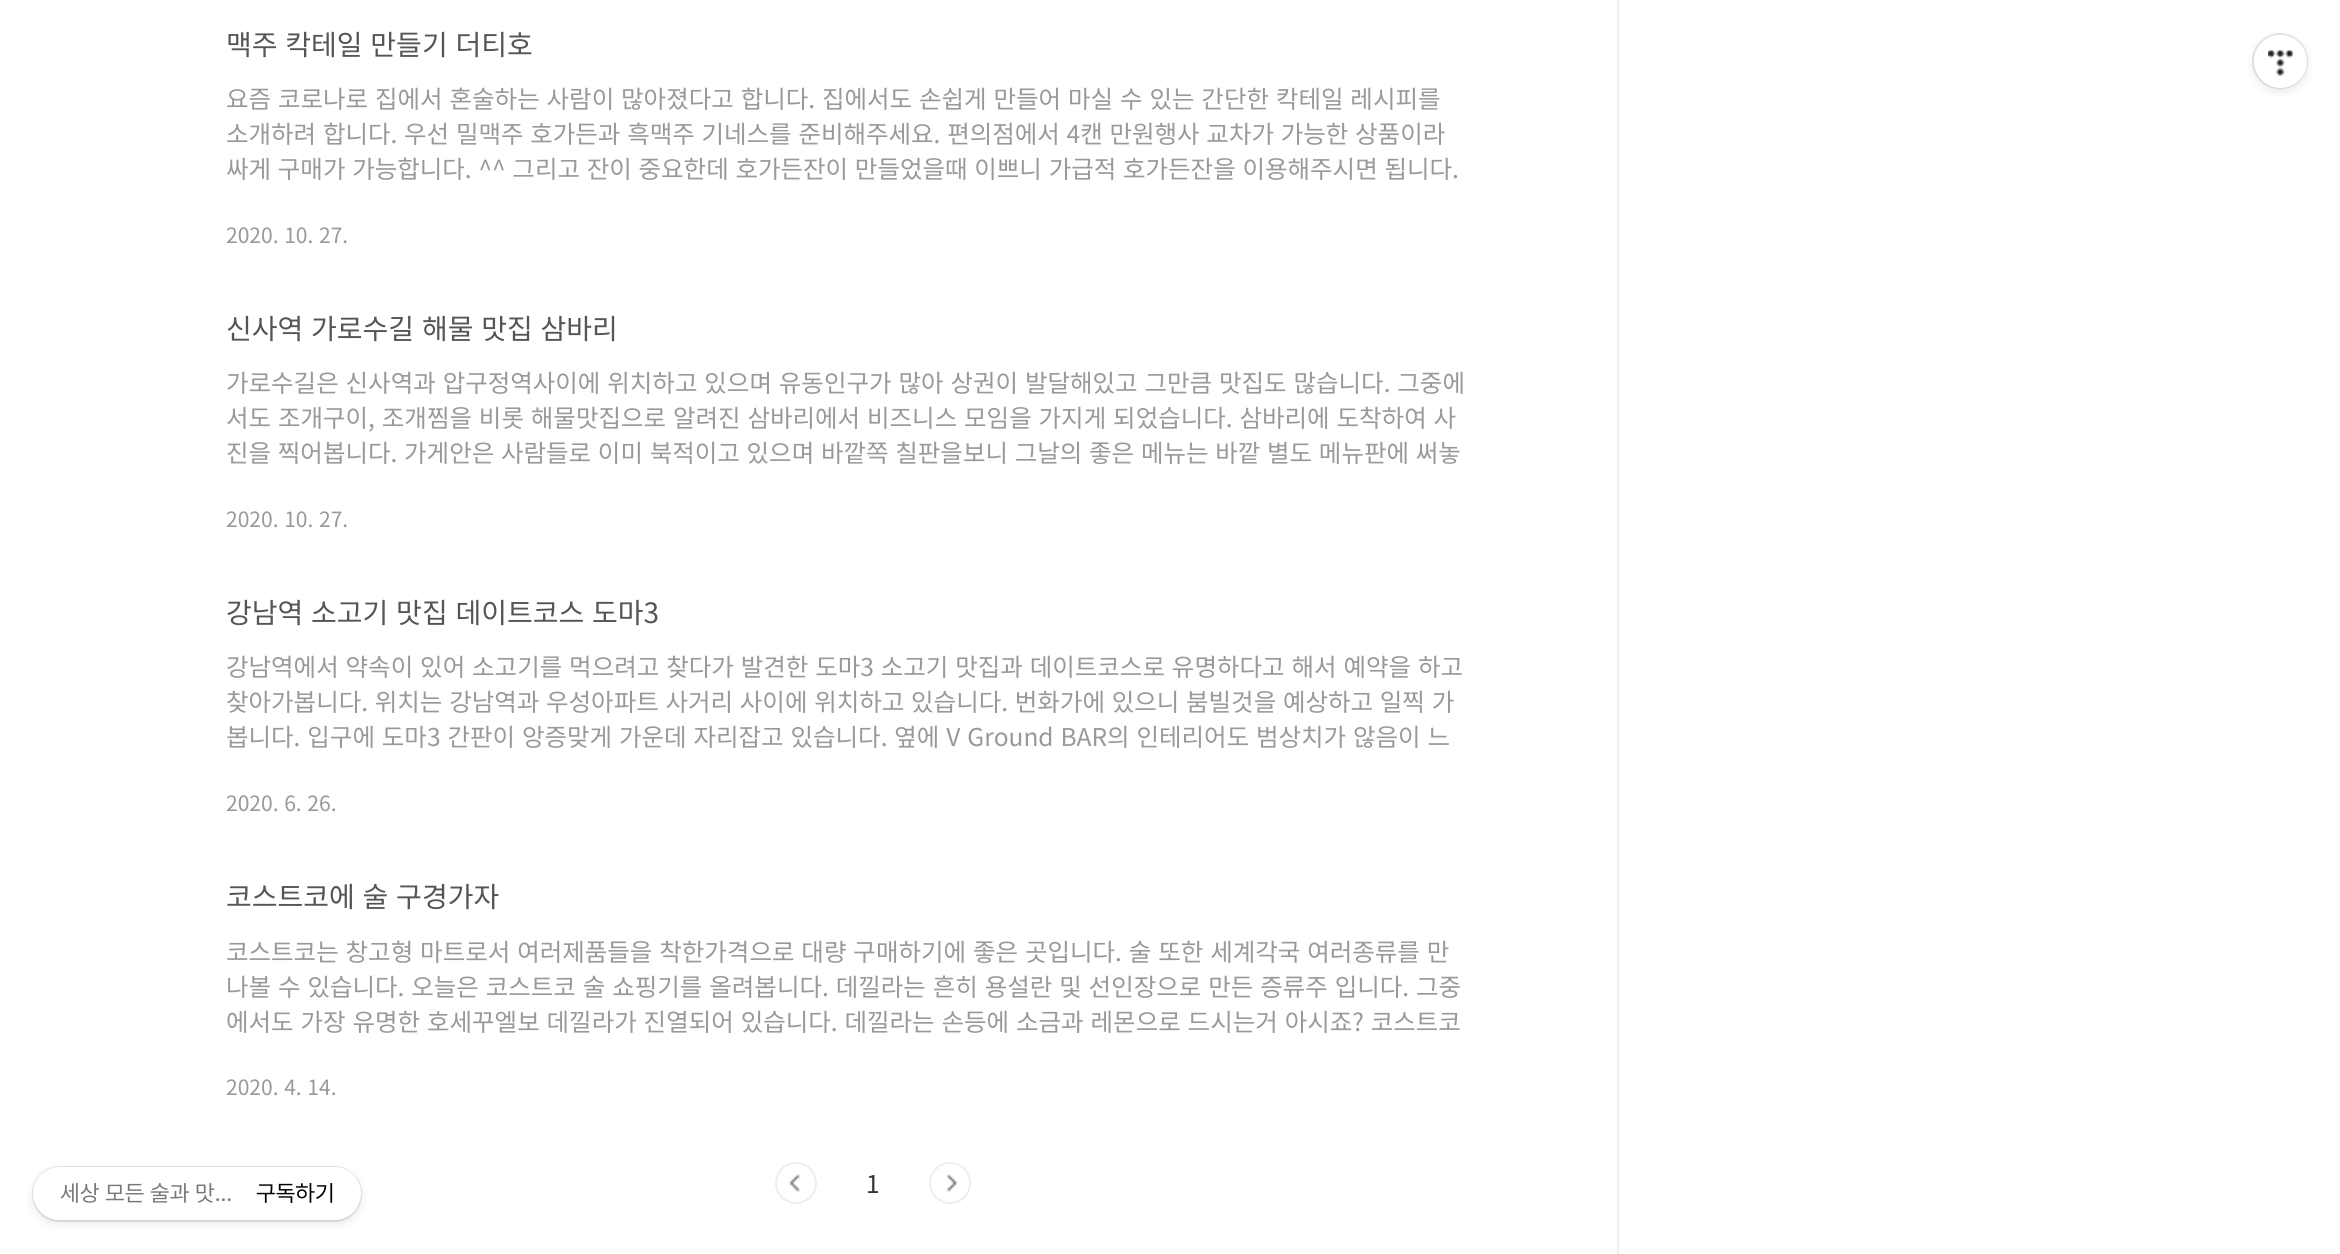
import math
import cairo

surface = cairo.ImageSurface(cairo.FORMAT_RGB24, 2340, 1254)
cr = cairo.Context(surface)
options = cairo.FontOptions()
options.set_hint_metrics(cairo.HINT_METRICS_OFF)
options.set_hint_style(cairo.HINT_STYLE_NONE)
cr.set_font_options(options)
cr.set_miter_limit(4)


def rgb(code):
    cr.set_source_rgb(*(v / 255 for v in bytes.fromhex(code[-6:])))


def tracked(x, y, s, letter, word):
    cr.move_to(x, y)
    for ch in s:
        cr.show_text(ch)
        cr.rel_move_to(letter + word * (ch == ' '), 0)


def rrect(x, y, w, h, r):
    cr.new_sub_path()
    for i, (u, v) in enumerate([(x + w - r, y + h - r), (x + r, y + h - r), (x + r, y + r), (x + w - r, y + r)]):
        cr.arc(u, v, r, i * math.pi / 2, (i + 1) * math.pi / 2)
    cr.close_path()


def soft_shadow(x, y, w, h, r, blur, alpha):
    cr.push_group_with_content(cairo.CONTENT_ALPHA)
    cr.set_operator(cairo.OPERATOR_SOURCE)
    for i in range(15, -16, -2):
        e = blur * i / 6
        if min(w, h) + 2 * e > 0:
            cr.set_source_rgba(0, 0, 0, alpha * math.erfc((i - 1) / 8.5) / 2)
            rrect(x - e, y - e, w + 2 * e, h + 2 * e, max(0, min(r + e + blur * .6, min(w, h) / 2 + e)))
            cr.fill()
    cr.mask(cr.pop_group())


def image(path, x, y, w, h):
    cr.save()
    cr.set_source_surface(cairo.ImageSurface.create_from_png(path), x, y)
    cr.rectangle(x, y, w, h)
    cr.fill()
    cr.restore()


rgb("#ffffff")
cr.paint()
rgb("#000000")
soft_shadow(33, 1171, 328, 52, 26, 4.5, 0.1)
rrect(33, 1167, 328, 54, 27)
cr.set_source_rgba(0, 0, 0, 0.1)
cr.stroke()
rgb("#ffffff")
rrect(33, 1167, 328, 53, 26.5)
cr.fill()
image("img/1.png", 789, 1174, 12, 18)
cr.arc(796, 1183, 20, 0, 2 * math.pi)
rgb("#eeeeee")
cr.stroke()
image("img/2.png", 946, 1174, 12, 18)
cr.arc(950, 1183, 20, 0, 2 * math.pi)
cr.stroke()
cr.rectangle(1617, 0, 2, 1254)
cr.fill()
rgb("#000000")
soft_shadow(2254, 39, 53, 52, 26, 4.5, 0.1)
cr.arc(2280, 61, 27, 0, 2 * math.pi)
cr.set_source_rgba(0, 0, 0, 0.1)
cr.stroke()
rgb("#ffffff")
cr.arc(2280.5, 61.5, 26.5, 0, 2 * math.pi)
cr.fill()
image("img/3.png", 2268, 49, 25, 27)
cr.select_font_face("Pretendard")
cr.set_font_size(22.75)
rgb("#777777")
cr.move_to(60, 1201)
cr.show_text("세상 모든 술과 맛…")
rgb("#000000")
cr.move_to(256, 1201)
cr.show_text("구독하기")
cr.select_font_face("Noto Sans KR")
cr.set_font_size(28)
rgb("#555555")
tracked(226, 55, "맥주 칵테일 만들기 더티호", 0, 1.5)
cr.set_font_size(24.5)
rgb("#999999")
tracked(226, 108, "요즘 코로나로 집에서 혼술하는 사람이 많아졌다고 합니다. 집에서도 손쉽게 만들어 마실 수 있는 간단한 칵테일 레시피를", 0, 1.4)
tracked(226, 143, "소개하려 합니다. 우선 밀맥주 호가든과 흑맥주 기네스를 준비해주세요. 편의점에서 4캔 만원행사 교차가 가능한 상품이라", 0, 1.25)
tracked(226, 178, "싸게 구매가 가능합니다. ^^ 그리고 잔이 중요한데 호가든잔이 만들었을때 이쁘니 가급적 호가든잔을 이용해주시면 됩니다.", 0, 1.25)
cr.set_font_size(21)
tracked(226, 243, "2020. 10. 27.", 0, 1)
cr.set_font_size(28)
rgb("#555555")
tracked(226, 339, "신사역 가로수길 해물 맛집 삼바리", 0, 1.5)
cr.set_font_size(24.5)
rgb("#999999")
tracked(226, 392, "가로수길은 신사역과 압구정역사이에 위치하고 있으며 유동인구가 많아 상권이 발달해있고 그만큼 맛집도 많습니다. 그중에", 0, 1.4)
tracked(226, 427, "서도 조개구이, 조개찜을 비롯 해물맛집으로 알려진 삼바리에서 비즈니스 모임을 가지게 되었습니다. 삼바리에 도착하여 사", 0, 1.4)
tracked(226, 462, "진을 찍어봅니다. 가게안은 사람들로 이미 북적이고 있으며 바깥쪽 칠판을보니 그날의 좋은 메뉴는 바깥 별도 메뉴판에 써놓", 0, 1.25)
cr.set_font_size(21)
tracked(226, 527, "2020. 10. 27.", 0, 1)
cr.set_font_size(28)
rgb("#555555")
tracked(226, 623, "강남역 소고기 맛집 데이트코스 도마3", 0, 1.5)
cr.set_font_size(24.5)
rgb("#999999")
tracked(226, 676, "강남역에서 약속이 있어 소고기를 먹으려고 찾다가 발견한 도마3 소고기 맛집과 데이트코스로 유명하다고 해서 예약을 하고", 0, 1.4)
tracked(226, 711, "찾아가봅니다. 위치는 강남역과 우성아파트 사거리 사이에 위치하고 있습니다. 번화가에 있으니 붐빌것을 예상하고 일찍 가", 0, 1.25)
tracked(226, 746, "봅니다. 입구에 도마3 간판이 앙증맞게 가운데 자리잡고 있습니다. 옆에 V Ground BAR의 인테리어도 범상치가 않음이 느", 0, 1.4)
cr.set_font_size(21)
tracked(226, 811, "2020. 6. 26.", 0, 1)
cr.set_font_size(28)
rgb("#555555")
tracked(226, 907, "코스트코에 술 구경가자", 0, 1.5)
cr.set_font_size(24.5)
rgb("#999999")
for x, y, s in [
    (226, 961, "코스트코는 창고형 마트로서 여러제품들을 착한가격으로 대량 구매하기에 좋은 곳입니다. 술 또한 세계각국 여러종류를 만"),
    (226, 996, "나볼 수 있습니다. 오늘은 코스트코 술 쇼핑기를 올려봅니다. 데낄라는 흔히 용설란 및 선인장으로 만든 증류주 입니다. 그중"),
    (226, 1031, "에서도 가장 유명한 호세꾸엘보 데낄라가 진열되어 있습니다. 데낄라는 손등에 소금과 레몬으로 드시는거 아시죠? 코스트코"),
]:
    tracked(x, y, s, 0, 1.4)
cr.set_font_size(21)
tracked(226, 1095, "2020. 4. 14.", 0, 1)
cr.set_font_size(24.5)
rgb("#333333")
cr.move_to(866, 1193)
cr.show_text("1")
surface.write_to_png("page.png")
